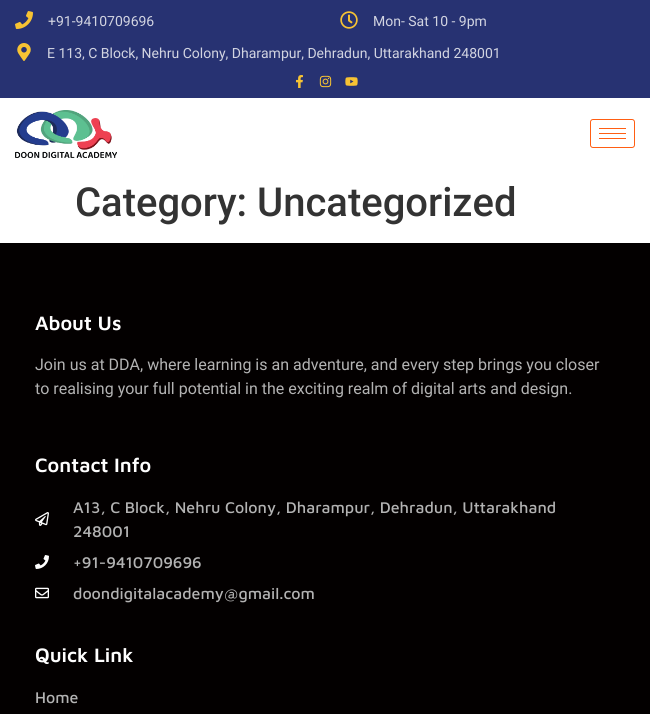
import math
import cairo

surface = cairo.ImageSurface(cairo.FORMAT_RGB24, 650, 714)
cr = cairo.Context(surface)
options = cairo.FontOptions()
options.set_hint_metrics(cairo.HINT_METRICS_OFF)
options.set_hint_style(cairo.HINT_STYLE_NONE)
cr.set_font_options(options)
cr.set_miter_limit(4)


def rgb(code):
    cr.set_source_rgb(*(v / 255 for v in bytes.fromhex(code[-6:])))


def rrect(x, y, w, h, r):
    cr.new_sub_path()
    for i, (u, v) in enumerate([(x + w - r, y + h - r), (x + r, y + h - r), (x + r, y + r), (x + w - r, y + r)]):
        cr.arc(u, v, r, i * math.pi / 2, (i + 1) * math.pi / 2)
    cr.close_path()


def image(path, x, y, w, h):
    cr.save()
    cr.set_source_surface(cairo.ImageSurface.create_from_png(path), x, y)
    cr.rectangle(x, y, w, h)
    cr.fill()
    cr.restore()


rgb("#ffffff")
cr.paint()
rgb("#273272")
cr.rectangle(0, 0, 650, 98)
cr.fill()
image("img/1.png", 15, 11, 18, 18)
image("img/2.png", 340, 11, 18, 18)
image("img/3.png", 17, 43, 14, 18)
image("img/4.png", 296, 75, 7, 13)
image("img/5.png", 319, 75, 13, 13)
image("img/6.png", 345, 77, 13, 9)
image("img/7.png", 15, 110, 102, 48)
rrect(590.5, 119.5, 44, 28, 2.5)
rgb("#ff5e13")
cr.set_line_width(1)
cr.stroke()
for x, y, w, h, color in [
    (599, 128, 27, 1, "#ff5e13"),
    (599, 133, 27, 1, "#ff5e13"),
    (599, 138, 27, 1, "#ff5e13"),
    (0, 243, 650, 471, "#030000"),
]:
    rgb(color)
    cr.rectangle(x, y, w, h)
    cr.fill()
image("img/8.png", 35, 512, 14, 14)
image("img/9.png", 35, 555, 14, 14)
image("img/10.png", 35, 587, 14, 12)
cr.select_font_face("Roboto")
cr.set_font_size(14)
rgb("#d2d4e1")
for x, y, s in [
    (48, 26, "+91-9410709696"),
    (373, 26, "Mon- Sat 10 - 9pm"),
    (47, 58, "E 113, C Block, Nehru Colony, Dharampur, Dehradun, Uttarakhand 248001"),
]:
    cr.move_to(x, y)
    cr.show_text(s)
cr.select_font_face("Roboto Medium")
cr.set_font_size(40)
rgb("#333333")
cr.move_to(75, 216)
cr.show_text("Category: Uncategorized")
cr.select_font_face("Maven Pro SemiBold")
cr.set_font_size(20)
rgb("#ffffff")
cr.move_to(35, 330)
cr.show_text("About Us")
cr.select_font_face("Roboto")
cr.set_font_size(16)
rgb("#b3b3b3")
cr.move_to(35, 370)
cr.show_text("Join us at DDA, where learning is an adventure, and every step brings you closer")
cr.move_to(35, 394)
cr.show_text("to realising your full potential in the exciting realm of digital arts and design.")
cr.select_font_face("Maven Pro SemiBold")
cr.set_font_size(20)
rgb("#ffffff")
cr.move_to(35, 472)
cr.show_text("Contact Info")
cr.select_font_face("Maven Pro Medium")
cr.set_font_size(16)
rgb("#b3b3b3")
for x, y, s in [
    (73, 513, "A13, C Block, Nehru Colony, Dharampur, Dehradun, Uttarakhand"),
    (73, 537, "248001"),
    (73, 568, "+91-9410709696"),
    (73, 599, "doondigitalacademy@gmail.com"),
]:
    cr.move_to(x, y)
    cr.show_text(s)
cr.select_font_face("Maven Pro SemiBold")
cr.set_font_size(20)
rgb("#ffffff")
cr.move_to(35, 662)
cr.show_text("Quick Link")
cr.select_font_face("Maven Pro Medium")
cr.set_font_size(16)
rgb("#b3b3b3")
cr.move_to(35, 703)
cr.show_text("Home")
surface.write_to_png("page.png")
